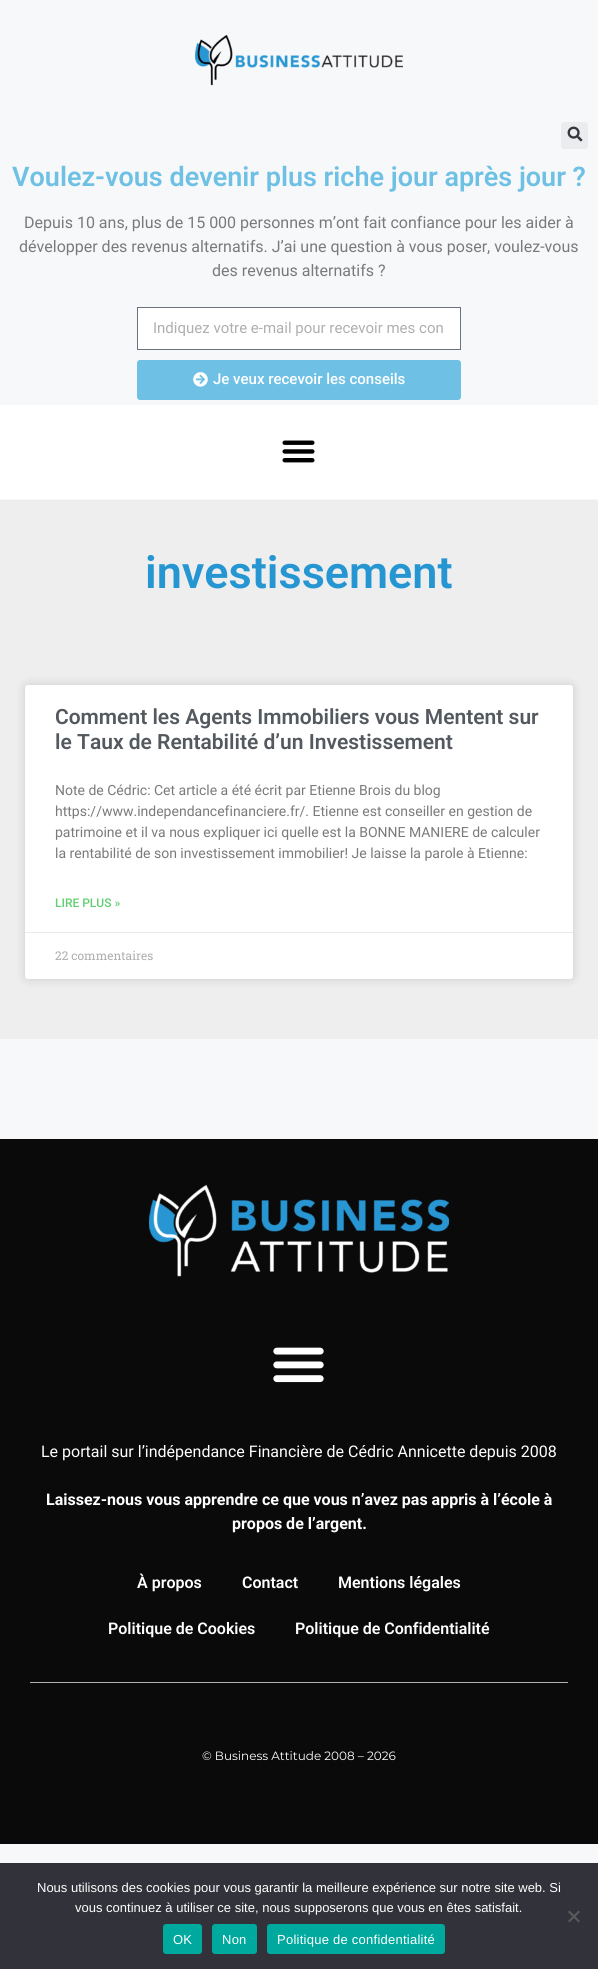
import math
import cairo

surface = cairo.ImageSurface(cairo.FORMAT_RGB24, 598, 1969)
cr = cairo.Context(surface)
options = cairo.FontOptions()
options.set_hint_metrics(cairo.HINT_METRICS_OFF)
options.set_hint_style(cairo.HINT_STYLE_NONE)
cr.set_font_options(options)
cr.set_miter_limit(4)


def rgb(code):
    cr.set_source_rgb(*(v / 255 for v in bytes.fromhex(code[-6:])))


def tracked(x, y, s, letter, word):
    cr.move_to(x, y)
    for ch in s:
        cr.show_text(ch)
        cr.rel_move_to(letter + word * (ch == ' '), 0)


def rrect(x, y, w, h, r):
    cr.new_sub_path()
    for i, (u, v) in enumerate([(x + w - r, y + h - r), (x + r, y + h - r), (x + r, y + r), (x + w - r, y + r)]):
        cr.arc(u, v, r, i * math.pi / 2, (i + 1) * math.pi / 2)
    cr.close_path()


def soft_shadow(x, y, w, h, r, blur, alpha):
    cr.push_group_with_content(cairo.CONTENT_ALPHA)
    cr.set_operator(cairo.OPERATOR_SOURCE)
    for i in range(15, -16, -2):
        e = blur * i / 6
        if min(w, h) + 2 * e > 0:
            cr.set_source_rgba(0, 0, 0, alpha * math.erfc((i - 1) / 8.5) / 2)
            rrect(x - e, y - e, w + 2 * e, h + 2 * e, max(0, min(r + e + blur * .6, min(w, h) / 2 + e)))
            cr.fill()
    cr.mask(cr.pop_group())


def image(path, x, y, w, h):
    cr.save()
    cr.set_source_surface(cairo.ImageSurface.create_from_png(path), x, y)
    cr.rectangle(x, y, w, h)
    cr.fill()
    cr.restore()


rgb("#f7f8f9")
cr.paint()
image("img/1.png", 195, 35, 208, 51)
rgb("#ebeced")
rrect(561, 122, 27, 27, 3)
cr.fill()
image("img/2.png", 567, 126, 16, 16)
rgb("#ffffff")
cr.rectangle(137.5, 307.5, 323, 42)
cr.fill_preserve()
rgb("#69727d")
cr.set_line_width(1)
cr.stroke()
rgb("#6ec1e4")
rrect(137, 360, 324, 40, 3)
cr.fill()
image("img/3.png", 193, 372, 15, 15)
rgb("#ffffff")
cr.rectangle(0, 405, 598, 94)
cr.fill()
image("img/4.png", 282, 440, 33, 23)
rgb("#eeeeee")
cr.rectangle(0, 500, 598, 539)
cr.fill()
rgb("#000000")
soft_shadow(25, 685, 548, 294, 3, 5, 0.15)
rgb("#ffffff")
rrect(25, 685, 548, 294, 3)
cr.fill()
rgb("#eaeaea")
cr.rectangle(25, 932, 548, 1)
cr.fill()
rgb("#0a0a0a")
cr.rectangle(0, 1139, 598, 705)
cr.fill()
image("img/5.png", 149, 1184, 300, 93)
image("img/6.png", 273, 1347, 51, 36)
rgb("#b1b1b1")
cr.rectangle(30, 1682, 538, 1)
cr.fill()
rgb("#32323a")
cr.rectangle(0, 1863, 598, 106)
cr.fill()
rgb("#59595d")
cr.new_path()
cr.move_to(578.5, 1910.5)
cr.line_to(580, 1912)
cr.line_to(569.5, 1922.5)
cr.line_to(568, 1921)
cr.close_path()
cr.fill()
cr.new_path()
cr.move_to(568, 1912)
cr.line_to(569.5, 1910.5)
cr.line_to(580, 1921)
cr.line_to(578.5, 1922.5)
cr.close_path()
cr.fill()
rgb("#00a99d")
rrect(163, 1924, 39, 30, 3)
cr.fill()
rrect(212, 1924, 45, 30, 3)
cr.fill()
rrect(267, 1924, 178, 30, 3)
cr.fill()
cr.select_font_face("Roboto SemiBold")
cr.set_font_size(27)
rgb("#6ec1e4")
cr.move_to(12, 186)
cr.show_text("Voulez-vous devenir plus riche jour après jour ?")
cr.select_font_face("Roboto")
cr.set_font_size(16)
rgb("#7a7a7a")
for x, y, s in [
    (24, 228, "Depuis 10 ans, plus de 15 000 personnes m’ont fait confiance pour les aider à"),
    (19, 252, "développer des revenus alternatifs. J’ai une question à vous poser, voulez-vous"),
    (212, 276, "des revenus alternatifs ?"),
]:
    cr.move_to(x, y)
    cr.show_text(s)
cr.set_font_size(15)
rgb("#afafaf")
cr.move_to(153, 333)
cr.show_text("Indiquez votre e-mail pour recevoir mes con")
cr.select_font_face("Roboto Medium")
rgb("#ffffff")
cr.move_to(213, 384)
cr.show_text("Je veux recevoir les conseils")
cr.select_font_face("Roboto SemiBold")
cr.set_font_size(45)
rgb("#2696d3")
cr.move_to(145, 588)
cr.show_text("investissement")
cr.set_font_size(21)
rgb("#54595f")
cr.move_to(55, 724)
cr.show_text("Comment les Agents Immobiliers vous Mentent sur")
cr.move_to(55, 749)
cr.show_text("le Taux de Rentabilité d’un Investissement")
cr.select_font_face("Roboto")
cr.set_font_size(14)
rgb("#7a7a7a")
for x, y, s in [
    (55, 795, "Note de Cédric: Cet article a été écrit par Etienne Brois du blog"),
    (55, 816, "https://www.independancefinanciere.fr/. Etienne est conseiller en gestion de"),
    (55, 837, "patrimoine et il va nous expliquer ici quelle est la BONNE MANIERE de calculer"),
    (55, 858, "la rentabilité de son investissement immobilier! Je laisse la parole à Etienne:"),
]:
    cr.move_to(x, y)
    cr.show_text(s)
cr.select_font_face("Roboto Medium")
cr.set_font_size(12)
rgb("#61ce70")
cr.move_to(55, 907)
cr.show_text("LIRE PLUS »")
cr.select_font_face("Roboto Slab")
rgb("#afafaf")
cr.move_to(55, 960)
cr.show_text("22 commentaires")
cr.select_font_face("Roboto")
cr.set_font_size(16)
rgb("#ffffff")
cr.move_to(41, 1457)
cr.show_text("Le portail sur l’indépendance Financière de Cédric Annicette depuis 2008")
cr.select_font_face("Roboto", cairo.FONT_SLANT_NORMAL, cairo.FONT_WEIGHT_BOLD)
cr.move_to(46, 1505)
cr.show_text("Laissez-nous vous apprendre ce que vous n’avez pas appris à l’école à")
cr.move_to(232, 1529)
cr.show_text("propos de l’argent.")
cr.select_font_face("Roboto SemiBold")
for x, y, s in [
    (137, 1588, "À propos"),
    (242, 1588, "Contact"),
    (338, 1588, "Mentions légales"),
    (108, 1634, "Politique de Cookies"),
    (295, 1634, "Politique de Confidentialité"),
]:
    cr.move_to(x, y)
    cr.show_text(s)
cr.select_font_face("Montserrat")
cr.set_font_size(12)
cr.move_to(202, 1760)
cr.show_text("© Business Attitude 2008 – 2026")
cr.select_font_face("Liberation Sans")
cr.set_font_size(13)
cr.move_to(37, 1892)
cr.show_text("Nous utilisons des cookies pour vous garantir la meilleure expérience sur notre site web. Si")
cr.move_to(75, 1912)
cr.show_text("vous continuez à utiliser ce site, nous supposerons que vous en êtes satisfait.")
for x, y, s in [
    (173, 1944, "OK"),
    (222, 1944, "Non"),
    (277, 1944, "Politique de confidentialité"),
]:
    tracked(x, y, s, 0.25, 0)
surface.write_to_png("page.png")
